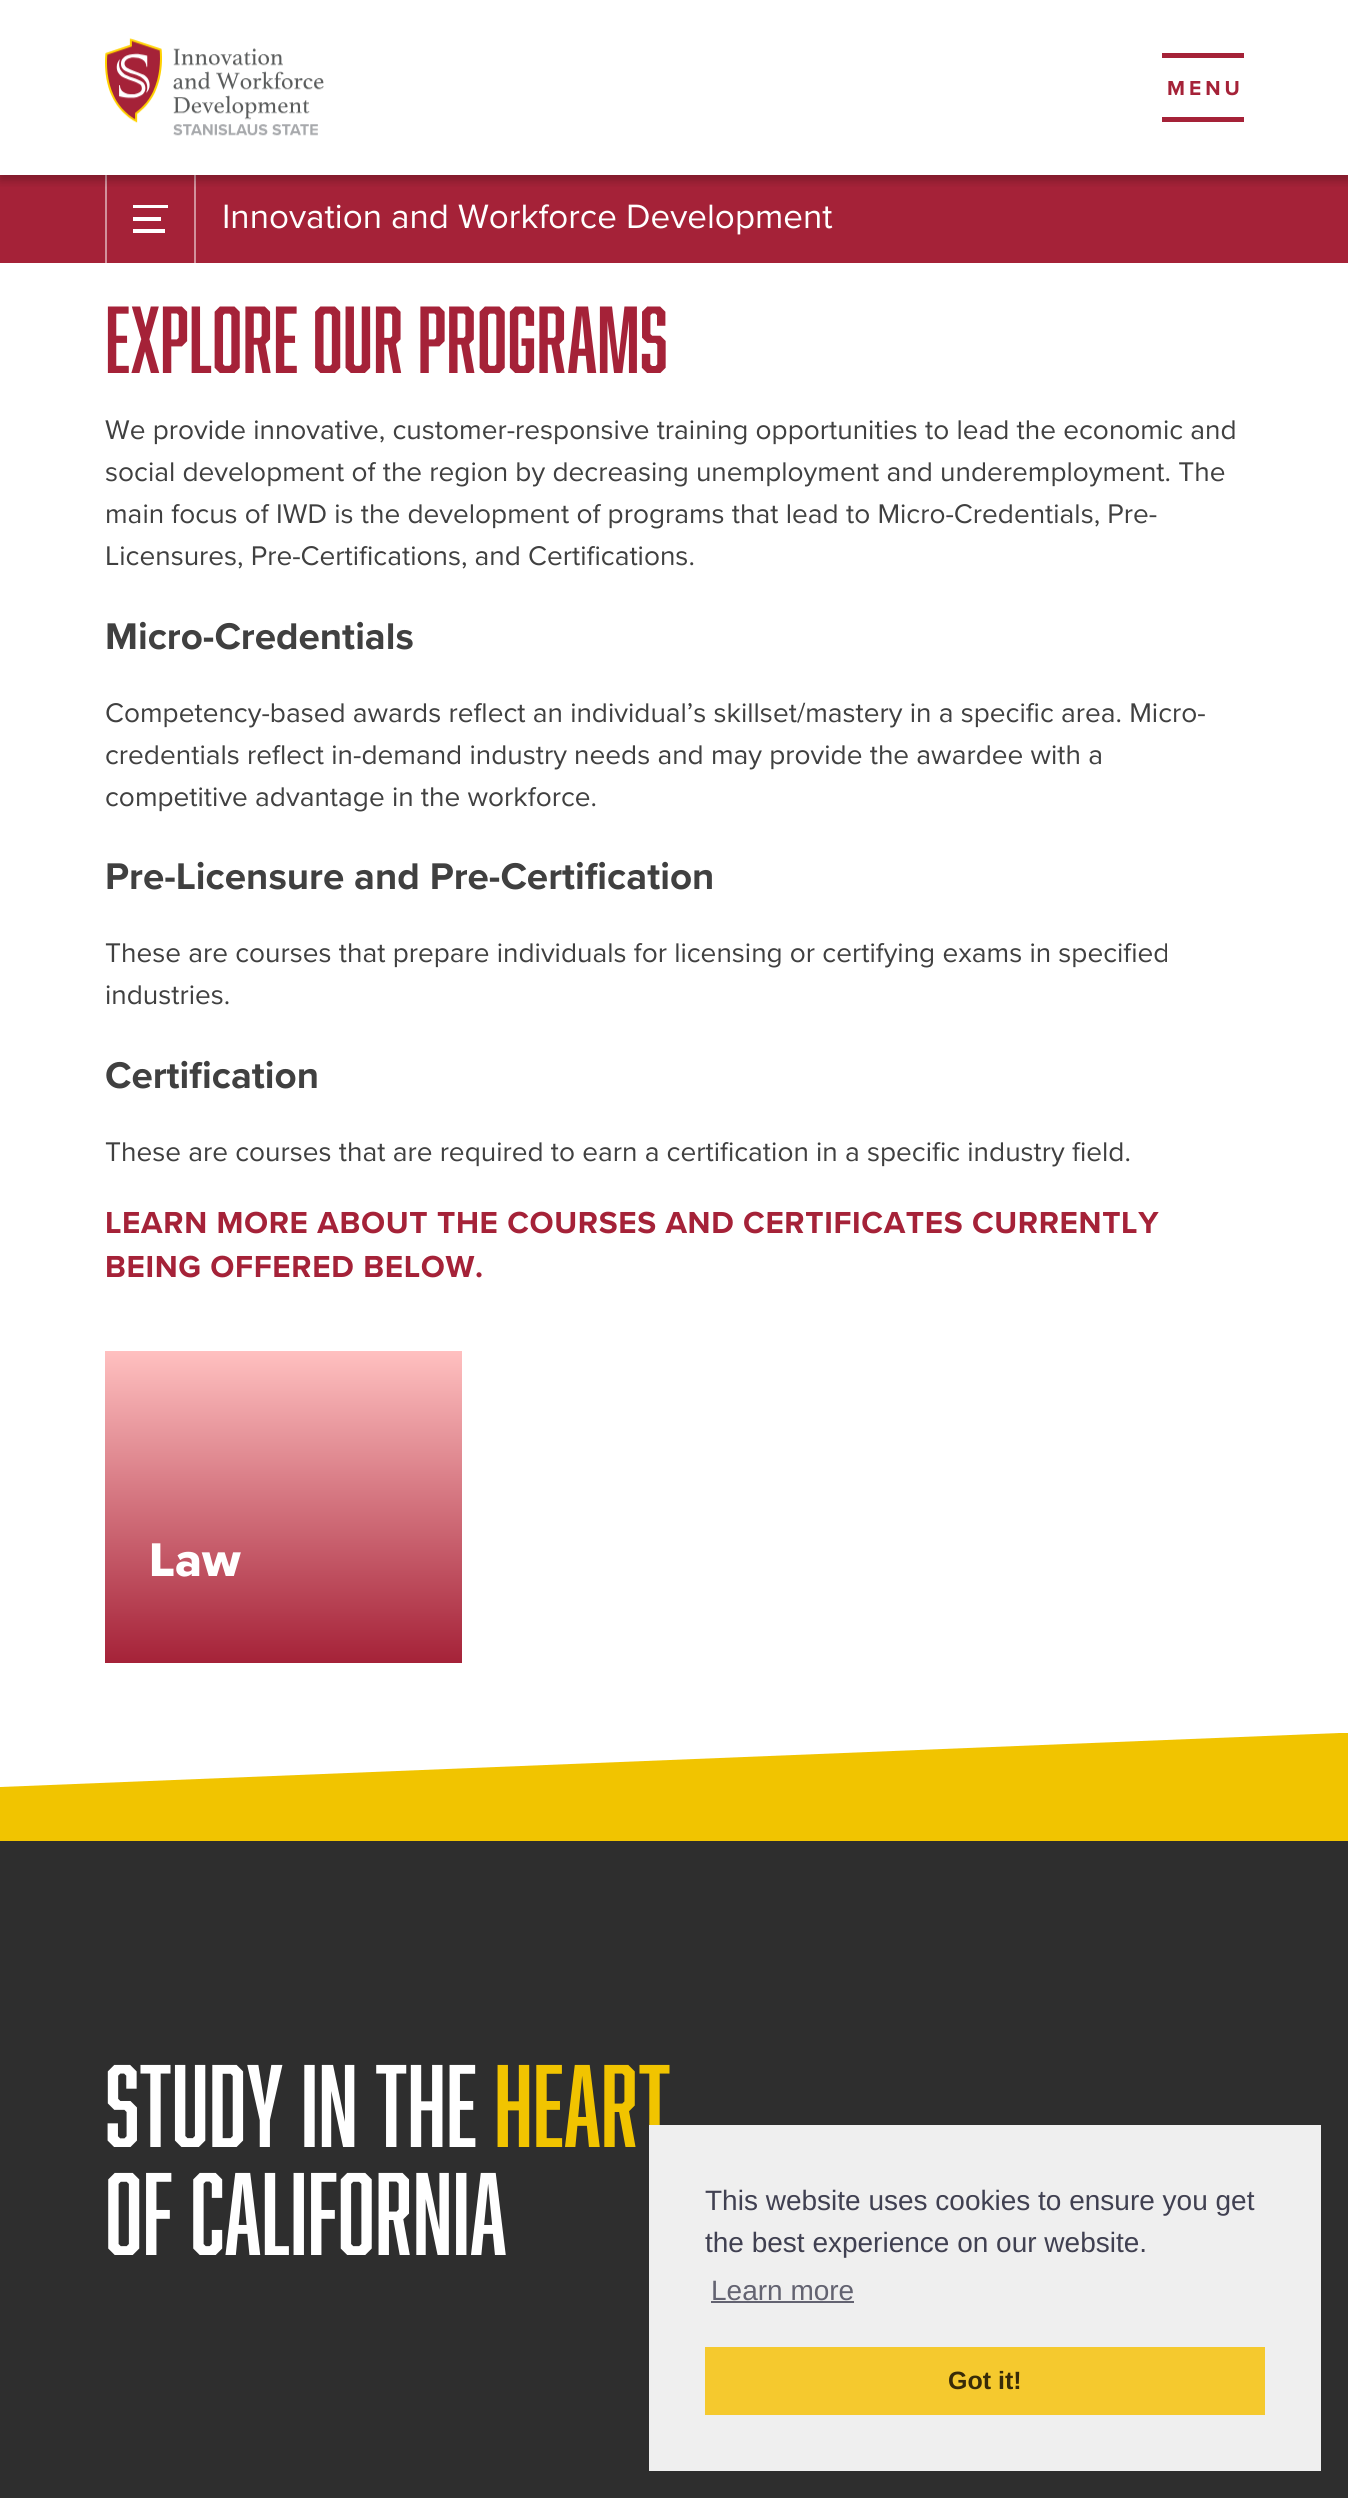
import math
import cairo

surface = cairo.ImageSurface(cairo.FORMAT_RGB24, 1348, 2498)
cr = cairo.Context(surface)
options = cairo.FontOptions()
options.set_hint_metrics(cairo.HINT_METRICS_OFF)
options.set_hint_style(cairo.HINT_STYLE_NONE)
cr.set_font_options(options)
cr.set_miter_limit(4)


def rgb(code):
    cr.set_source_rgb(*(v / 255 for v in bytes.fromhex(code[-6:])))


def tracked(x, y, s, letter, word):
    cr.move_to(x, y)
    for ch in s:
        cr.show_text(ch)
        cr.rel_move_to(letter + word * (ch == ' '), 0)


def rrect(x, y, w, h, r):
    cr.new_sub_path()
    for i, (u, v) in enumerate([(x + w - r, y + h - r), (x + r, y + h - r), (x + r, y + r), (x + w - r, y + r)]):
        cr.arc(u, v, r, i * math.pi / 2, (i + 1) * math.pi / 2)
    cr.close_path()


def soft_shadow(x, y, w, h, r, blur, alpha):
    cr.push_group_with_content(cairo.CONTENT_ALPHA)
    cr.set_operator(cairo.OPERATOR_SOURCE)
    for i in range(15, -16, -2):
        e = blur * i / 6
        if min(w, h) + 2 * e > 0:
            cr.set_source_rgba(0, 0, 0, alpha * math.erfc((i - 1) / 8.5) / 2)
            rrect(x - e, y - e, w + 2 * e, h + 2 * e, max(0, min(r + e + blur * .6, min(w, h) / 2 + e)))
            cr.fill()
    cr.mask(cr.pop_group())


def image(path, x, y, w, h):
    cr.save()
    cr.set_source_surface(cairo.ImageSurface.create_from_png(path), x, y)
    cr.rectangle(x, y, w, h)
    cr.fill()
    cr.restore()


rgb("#ffffff")
cr.paint()
for x, y, w, h, color in [
    (0, 175, 1348, 88, "#a52238"),
    (194, 175, 2, 88, "#d2919c"),
    (105, 175, 2, 88, "#d2919c"),
]:
    rgb(color)
    cr.rectangle(x, y, w, h)
    cr.fill()
cr.save()
cr.rectangle(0, 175, 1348, 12)
cr.clip()
rgb("#000000")
soft_shadow(0, 5, 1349, 175, 0, 5, 0.25)
cr.restore()
image("img/1.png", 105, 38, 219, 98)
for x, y, w, h, color in [
    (1162, 53, 82, 5, "#a52238"),
    (1162, 117, 82, 5, "#a52238"),
    (133, 205, 35, 3, "#ffffff"),
    (133, 217, 28, 4, "#ffffff"),
    (133, 229, 32, 4, "#ffffff"),
]:
    rgb(color)
    cr.rectangle(x, y, w, h)
    cr.fill()
gradient = cairo.LinearGradient(284, 1663, 284, 1351)
gradient.add_color_stop_rgba(0, 0.647, 0.133, 0.22, 1)
gradient.add_color_stop_rgba(1, 1, 0.753, 0.753, 1)
cr.set_source(gradient)
cr.rectangle(105, 1351, 357, 312)
cr.fill()
rgb("#f1c400")
cr.new_path()
cr.move_to(0, 1787)
cr.line_to(0, 1841)
cr.line_to(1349, 1841)
cr.line_to(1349, 1733)
cr.line_to(1339, 1733)
cr.close_path()
cr.fill()
rgb("#2e2e2e")
cr.rectangle(0, 1841, 1348, 657)
cr.fill()
cr.select_font_face("Proxima Nova", cairo.FONT_SLANT_NORMAL, cairo.FONT_WEIGHT_BOLD)
cr.set_font_size(21)
rgb("#a52238")
tracked(1167, 95, "MENU", 4, 0)
cr.select_font_face("Proxima Nova")
cr.set_font_size(35)
rgb("#ffffff")
cr.move_to(222, 228)
cr.show_text("Innovation and Workforce Development")
cr.select_font_face("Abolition")
cr.set_font_size(87.5)
rgb("#a52238")
cr.move_to(105, 373)
cr.show_text("Explore our Programs")
cr.select_font_face("Proxima Nova")
cr.set_font_size(28)
rgb("#404040")
for x, y, s in [
    (105, 439, "We provide innovative, customer-responsive training opportunities to lead the economic and"),
    (105, 481, "social development of the region by decreasing unemployment and underemployment. The"),
    (105, 523, "main focus of IWD is the development of programs that lead to Micro-Credentials, Pre-"),
    (105, 565, "Licensures, Pre-Certifications, and Certifications."),
]:
    cr.move_to(x, y)
    cr.show_text(s)
cr.select_font_face("Proxima Nova", cairo.FONT_SLANT_NORMAL, cairo.FONT_WEIGHT_BOLD)
cr.set_font_size(38.5)
cr.move_to(105, 649)
cr.show_text("Micro-Credentials")
cr.select_font_face("Proxima Nova")
cr.set_font_size(28)
for x, y, s in [
    (105, 722, "Competency-based awards reflect an individual’s skillset/mastery in a specific area. Micro-"),
    (105, 764, "credentials reflect in-demand industry needs and may provide the awardee with a"),
    (105, 806, "competitive advantage in the workforce."),
]:
    cr.move_to(x, y)
    cr.show_text(s)
cr.select_font_face("Proxima Nova", cairo.FONT_SLANT_NORMAL, cairo.FONT_WEIGHT_BOLD)
cr.set_font_size(38.5)
cr.move_to(105, 889)
cr.show_text("Pre-Licensure and Pre-Certification")
cr.select_font_face("Proxima Nova")
cr.set_font_size(28)
cr.move_to(105, 962)
cr.show_text("These are courses that prepare individuals for licensing or certifying exams in specified")
cr.move_to(105, 1004)
cr.show_text("industries.")
cr.select_font_face("Proxima Nova", cairo.FONT_SLANT_NORMAL, cairo.FONT_WEIGHT_BOLD)
cr.set_font_size(38.5)
cr.move_to(105, 1088)
cr.show_text("Certification")
cr.select_font_face("Proxima Nova")
cr.set_font_size(28)
cr.move_to(105, 1161)
cr.show_text("These are courses that are required to earn a certification in a specific industry field.")
cr.select_font_face("Proxima Nova", cairo.FONT_SLANT_NORMAL, cairo.FONT_WEIGHT_BOLD)
cr.set_font_size(31.5)
rgb("#a52238")
tracked(105, 1233, "LEARN MORE ABOUT THE COURSES AND CERTIFICATES CURRENTLY", 0.63, 0)
tracked(105, 1277, "BEING OFFERED BELOW.", 0.63, 0)
cr.select_font_face("Proxima Nova ExtraBold")
cr.set_font_size(49)
rgb("#ffffff")
cr.move_to(149, 1576)
cr.show_text("Law")
cr.select_font_face("Abolition")
cr.set_font_size(108)
cr.move_to(105, 2147)
cr.show_text("STUDY IN THE")
rgb("#f1c400")
cr.move_to(494, 2147)
cr.show_text("HEART")
rgb("#ffffff")
cr.move_to(105, 2255)
cr.show_text("OF CALIFORNIA")
rgb("#efefef")
cr.rectangle(649, 2125, 672, 346)
cr.fill()
cr.select_font_face("Liberation Sans")
cr.set_font_size(28)
rgb("#404051")
cr.move_to(705, 2210)
cr.show_text("This website uses cookies to ensure you get")
cr.move_to(705, 2252)
cr.show_text("the best experience on our website.")
rgb("#636371")
cr.move_to(711, 2300)
cr.show_text("Learn more")
cr.rectangle(711, 2301, 143, 2)
cr.fill()
rgb("#f5c92e")
cr.rectangle(705, 2347, 560, 68)
cr.fill()
cr.select_font_face("Liberation Sans", cairo.FONT_SLANT_NORMAL, cairo.FONT_WEIGHT_BOLD)
cr.set_font_size(25)
rgb("#382b08")
cr.move_to(948, 2389)
cr.show_text("Got it!")
surface.write_to_png("page.png")
